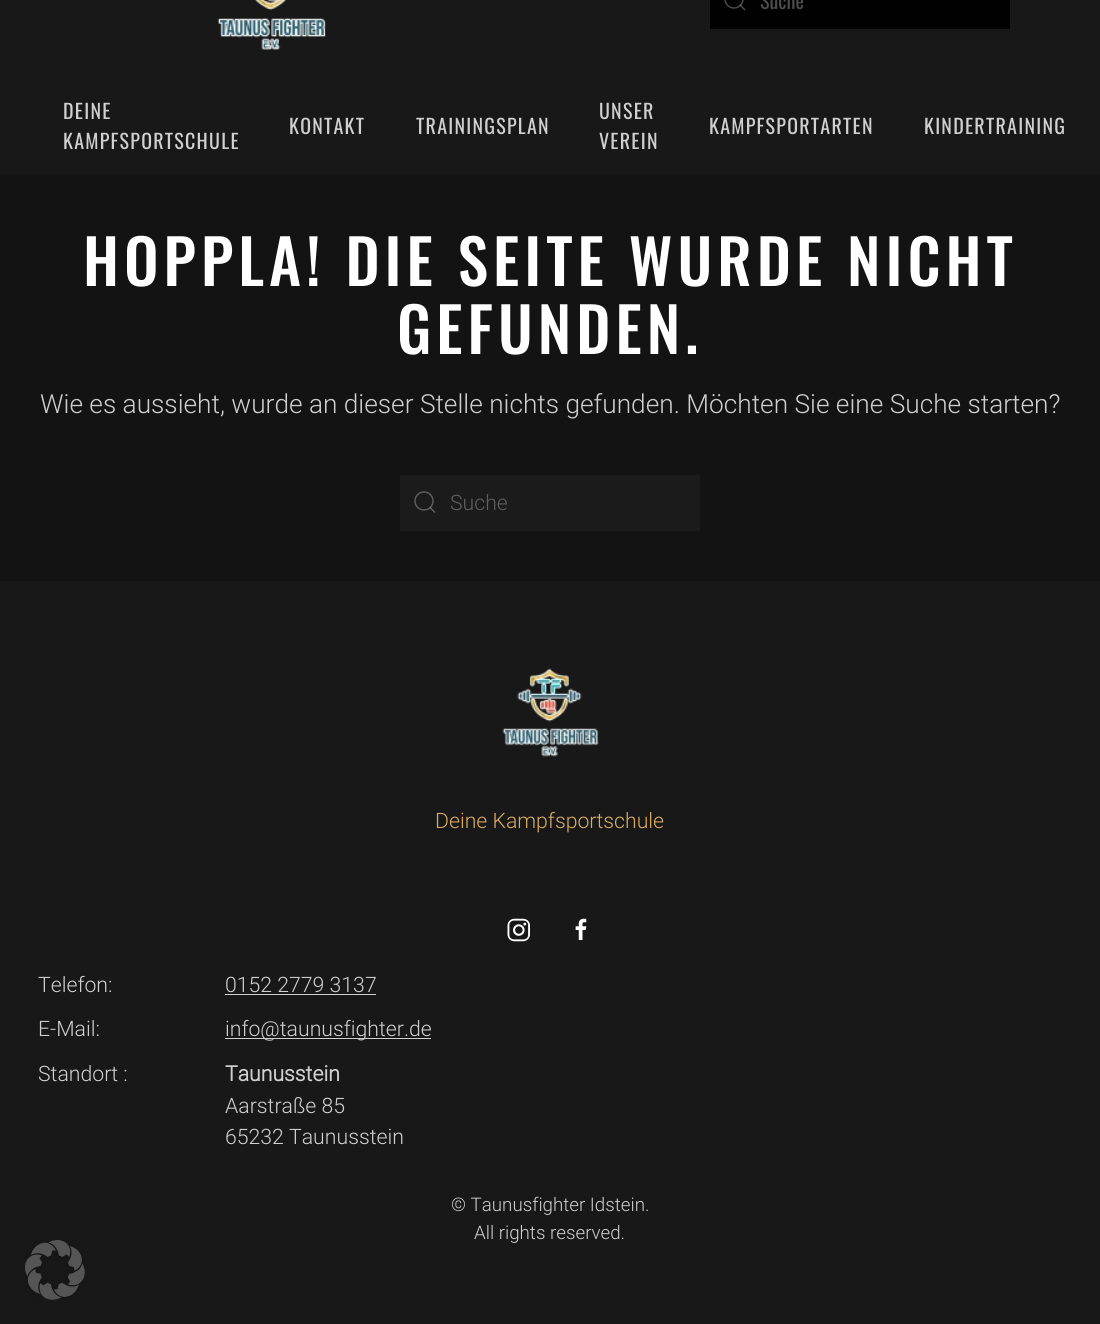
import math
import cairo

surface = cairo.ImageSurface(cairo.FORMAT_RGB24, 1100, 1324)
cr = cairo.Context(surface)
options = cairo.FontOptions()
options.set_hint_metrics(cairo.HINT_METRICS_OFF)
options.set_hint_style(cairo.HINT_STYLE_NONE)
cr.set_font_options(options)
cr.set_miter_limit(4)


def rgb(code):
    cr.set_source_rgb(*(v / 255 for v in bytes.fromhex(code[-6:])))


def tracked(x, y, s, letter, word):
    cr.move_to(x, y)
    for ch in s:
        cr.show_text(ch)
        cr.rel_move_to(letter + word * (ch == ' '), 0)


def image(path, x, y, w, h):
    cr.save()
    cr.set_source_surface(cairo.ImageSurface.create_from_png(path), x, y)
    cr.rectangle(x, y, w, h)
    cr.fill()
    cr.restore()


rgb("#131313")
cr.paint()
rgb("#181818")
cr.rectangle(0, 0, 1100, 175)
cr.fill()
image("img/1.png", 217, 0, 109, 50)
rgb("#010101")
cr.rectangle(710, 0, 300, 29)
cr.fill()
cr.arc(734, -1, 9, 0, 2 * math.pi)
rgb("#4d4d4d")
cr.set_line_width(1.4)
cr.stroke()
cr.new_path()
cr.move_to(740, 5)
cr.line_to(745, 10)
cr.close_path()
cr.set_source_rgba(1, 1, 1, 0.3)
cr.stroke()
rgb("#1b1b1b")
cr.rectangle(400, 475, 300, 56)
cr.fill()
cr.arc(424, 501, 9, 0, 2 * math.pi)
rgb("#5f5f5f")
cr.stroke()
cr.new_path()
cr.move_to(430, 507.5)
cr.line_to(435, 512.5)
cr.close_path()
cr.set_source_rgba(1, 1, 1, 0.3)
cr.stroke()
rgb("#181818")
cr.rectangle(0, 581, 1100, 743)
cr.fill()
image("img/2.png", 502, 668, 97, 89)
image("img/3.png", 507, 918, 23, 24)
image("img/4.png", 575, 918, 12, 22)
rgb("#d1d1d1")
cr.rectangle(225, 994, 151, 1)
cr.fill()
cr.rectangle(225, 1038, 206, 1)
cr.fill()
image("img/5.png", 25, 1240, 60, 60)
cr.select_font_face("Oswald")
cr.set_font_size(20)
rgb("#4d4d4d")
cr.move_to(760, 9)
cr.show_text("Suche")
rgb("#d0d0d0")
for x, y, s in [
    (63, 119, "DEINE"),
    (63, 149, "KAMPFSPORTSCHULE"),
    (289, 134, "KONTAKT"),
    (416, 134, "TRAININGSPLAN"),
    (599, 119, "UNSER"),
    (599, 149, "VEREIN"),
    (709, 134, "KAMPFSPORTARTEN"),
    (924, 134, "KINDERTRAINING"),
]:
    tracked(x, y, s, 1.25, 0)
cr.select_font_face("Oswald Medium")
cr.set_font_size(61.4)
rgb("#ffffff")
tracked(83, 286, "HOPPLA! DIE SEITE WURDE NICHT", 5, 0)
tracked(397, 354, "GEFUNDEN.", 5, 0)
cr.select_font_face("Roboto Light")
cr.set_font_size(26.25)
rgb("#d0d0d0")
cr.move_to(40, 413)
cr.show_text("Wie es aussieht, wurde an dieser Stelle nichts gefunden. Möchten Sie eine Suche starten?")
cr.set_font_size(21.25)
rgb("#5f5f5f")
cr.move_to(450, 510)
cr.show_text("Suche")
rgb("#dcad61")
cr.move_to(435, 828)
cr.show_text("Deine Kampfsportschule")
rgb("#d0d0d0")
for x, y, s in [
    (38, 992, "Telefon:"),
    (225, 992, "0152 2779 3137"),
    (38, 1036, "E-Mail:"),
    (225, 1036, "info@taunusfighter.de"),
    (38, 1081, "Standort :"),
]:
    cr.move_to(x, y)
    cr.show_text(s)
cr.select_font_face("Roboto", cairo.FONT_SLANT_NORMAL, cairo.FONT_WEIGHT_BOLD)
cr.move_to(225, 1081)
cr.show_text("Taunusstein")
cr.select_font_face("Roboto Light")
cr.move_to(225, 1113)
cr.show_text("Aarstraße 85")
cr.move_to(225, 1144)
cr.show_text("65232 Taunusstein")
cr.set_font_size(18.75)
cr.move_to(451, 1211)
cr.show_text("© Taunusfighter Idstein.")
cr.move_to(474, 1239)
cr.show_text("All rights reserved.")
surface.write_to_png("page.png")
